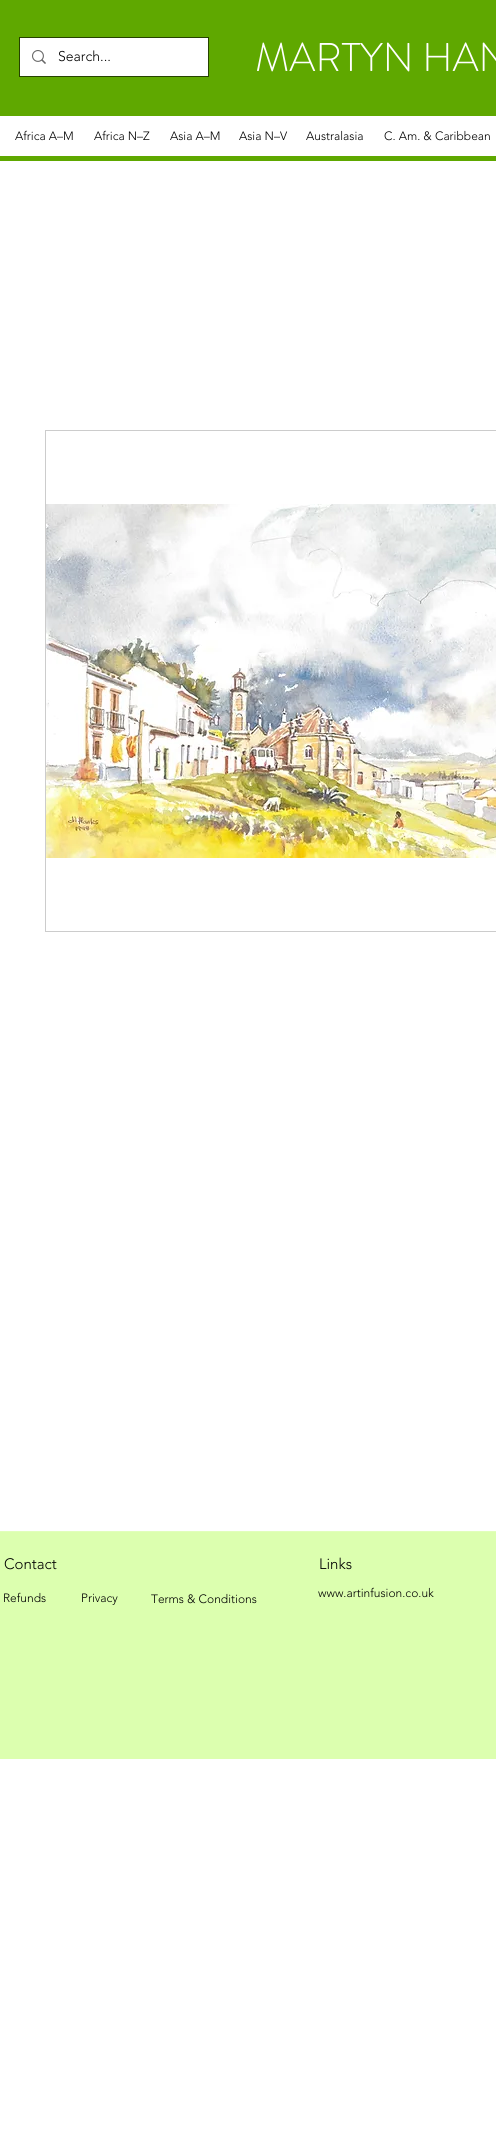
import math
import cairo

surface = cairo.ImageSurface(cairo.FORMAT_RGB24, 496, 2148)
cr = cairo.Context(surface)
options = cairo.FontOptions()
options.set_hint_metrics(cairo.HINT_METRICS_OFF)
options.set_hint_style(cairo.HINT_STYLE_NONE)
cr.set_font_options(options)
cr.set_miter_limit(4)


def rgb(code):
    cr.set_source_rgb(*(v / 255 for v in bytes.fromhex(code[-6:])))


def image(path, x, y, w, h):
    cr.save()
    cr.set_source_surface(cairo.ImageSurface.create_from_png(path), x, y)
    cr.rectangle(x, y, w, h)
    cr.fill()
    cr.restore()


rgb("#ffffff")
cr.paint()
rgb("#5fa800")
cr.rectangle(0, 0, 496, 161)
cr.fill()
cr.rectangle(19.5, 37.5, 189, 39)
rgb("#264300")
cr.set_line_width(1)
cr.stroke()
rgb("#ffffff")
cr.rectangle(20, 38, 188, 38)
cr.fill()
image("img/1.png", 32, 50, 14, 14)
cr.rectangle(0, 116, 496, 40)
cr.fill()
cr.rectangle(45.5, 430.5, 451, 501)
rgb("#cccccc")
cr.stroke()
image("img/2.png", 46, 504, 450, 354)
rgb("#dcffaf")
cr.rectangle(0, 1532, 496, 227)
cr.fill()
rgb("#e1ffbb")
cr.rectangle(0, 1531, 496, 1)
cr.fill()
cr.select_font_face("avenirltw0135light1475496 Light")
cr.set_font_size(14)
rgb("#000000")
cr.move_to(58, 61)
cr.show_text("Search...")
cr.select_font_face("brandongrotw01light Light")
cr.set_font_size(40)
rgb("#ffffff")
cr.move_to(255, 71)
cr.show_text("MARTYN HAN")
cr.select_font_face("avenirltw0135light1475496 Light")
cr.set_font_size(12)
rgb("#000000")
for x, y, s in [
    (15, 140, "Africa A–M"),
    (94, 140, "Africa N–Z"),
    (170, 140, "Asia A–M"),
    (239, 140, "Asia N–V"),
    (306, 140, "Australasia"),
    (384, 140, "C. Am. & Caribbean"),
]:
    cr.move_to(x, y)
    cr.show_text(s)
cr.set_font_size(15)
cr.move_to(4, 1569)
cr.show_text("Contact")
cr.move_to(319, 1569)
cr.show_text("Links")
cr.set_font_size(12)
for x, y, s in [
    (3, 1602, "Refunds"),
    (81, 1602, "Privacy"),
    (151, 1603, "Terms & Conditions"),
    (318, 1597, "www.artinfusion.co.uk"),
]:
    cr.move_to(x, y)
    cr.show_text(s)
surface.write_to_png("page.png")
